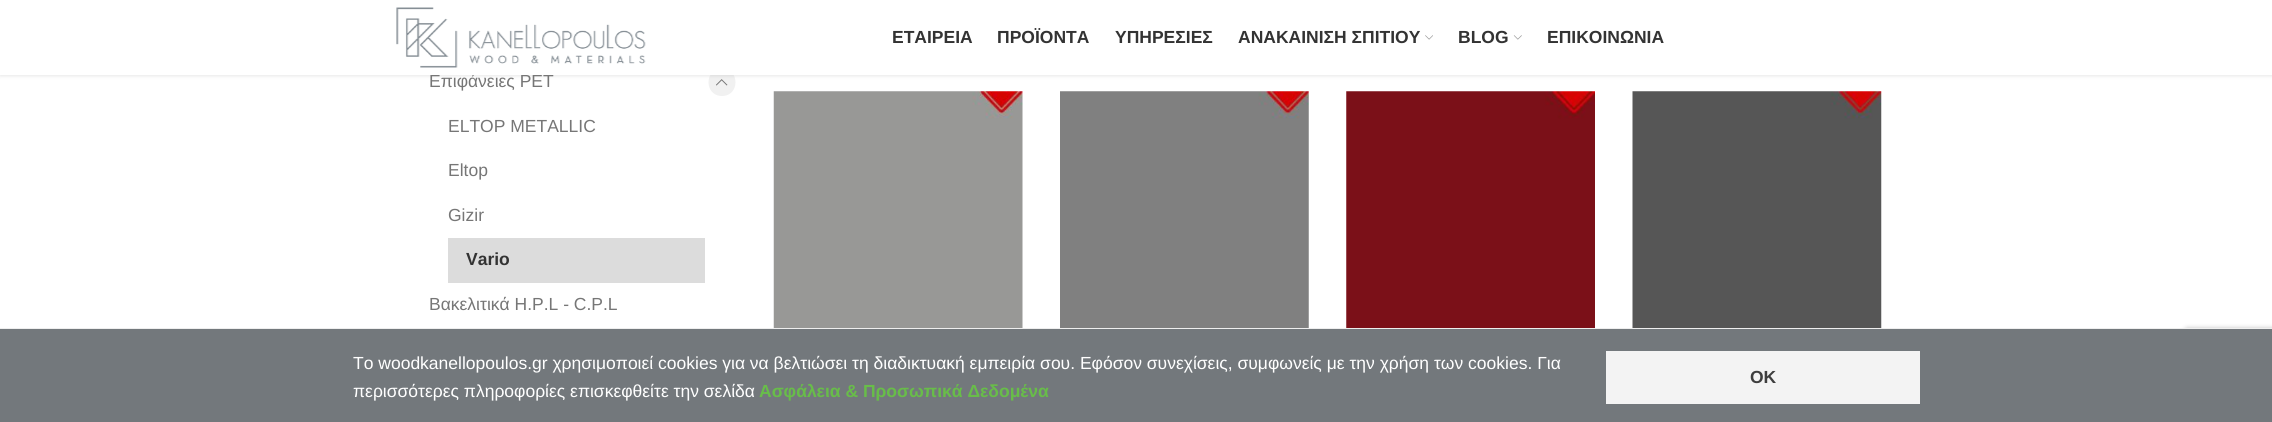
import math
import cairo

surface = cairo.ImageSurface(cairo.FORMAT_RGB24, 2272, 422)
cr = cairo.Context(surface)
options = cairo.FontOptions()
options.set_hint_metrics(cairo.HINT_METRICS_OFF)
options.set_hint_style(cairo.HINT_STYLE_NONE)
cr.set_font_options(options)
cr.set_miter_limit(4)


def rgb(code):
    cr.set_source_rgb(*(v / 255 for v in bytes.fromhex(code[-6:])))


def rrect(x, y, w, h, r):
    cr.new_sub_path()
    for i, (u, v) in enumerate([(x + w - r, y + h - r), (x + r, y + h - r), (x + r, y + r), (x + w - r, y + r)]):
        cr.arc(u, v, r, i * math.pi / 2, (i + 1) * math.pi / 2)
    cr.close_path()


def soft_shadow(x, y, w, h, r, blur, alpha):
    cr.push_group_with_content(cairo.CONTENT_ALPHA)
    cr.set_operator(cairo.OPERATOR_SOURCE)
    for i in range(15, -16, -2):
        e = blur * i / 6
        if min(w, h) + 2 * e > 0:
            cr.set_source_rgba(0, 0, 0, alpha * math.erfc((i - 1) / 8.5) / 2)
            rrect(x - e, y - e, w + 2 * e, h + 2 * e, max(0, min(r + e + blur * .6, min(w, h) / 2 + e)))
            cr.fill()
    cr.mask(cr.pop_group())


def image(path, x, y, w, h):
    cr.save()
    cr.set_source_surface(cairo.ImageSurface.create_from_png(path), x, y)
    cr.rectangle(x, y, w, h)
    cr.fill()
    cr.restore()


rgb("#ffffff")
cr.paint()
rgb("#f1f1f1")
cr.new_path()
cr.move_to(722, 96)
cr.curve_to(704, 96, 704, 68.5, 722, 68.5)
cr.curve_to(740, 68.5, 740, 96, 722, 96)
cr.close_path()
cr.fill()
image("img/4.png", 716, 79, 12, 7)
rgb("#000000")
soft_shadow(0, 1, 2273, 75, 0, 2, 0.1)
rgb("#dcdcdc")
cr.rectangle(448, 238, 257, 45)
cr.fill()
image("img/5.png", 773, 91, 250, 237)
image("img/6.png", 1060, 91, 249, 237)
image("img/7.png", 1346, 91, 249, 237)
image("img/8.png", 1632, 91, 250, 237)
rgb("#808080")
soft_shadow(2185, 330, 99, 75, 2.5, 3, 1)
for x, y, w, h, color in [
    (0, 329, 2272, 93, "#73787c"),
    (0, 328, 2272, 1, "#eeeeee"),
    (1606, 351, 314, 53, "#f3f3f3"),
]:
    rgb(color)
    cr.rectangle(x, y, w, h)
    cr.fill()
cr.select_font_face("Liberation Sans")
cr.set_font_size(17.5)
rgb("#767676")
cr.move_to(429, 87)
cr.show_text("Επιφάνειες PET")
rgb("#ffffff")
cr.rectangle(0, 0, 2272, 75)
cr.fill()
cr.select_font_face("Liberation Sans", cairo.FONT_SLANT_NORMAL, cairo.FONT_WEIGHT_BOLD)
rgb("#333333")
cr.move_to(1547, 43)
cr.show_text("ΕΠΙΚΟΙΝΩΝΙΑ")
image("img/3.png", 1513, 35, 9, 5)
cr.move_to(1458, 43)
cr.show_text("BLOG")
image("img/2.png", 1425, 35, 8, 5)
for x, y, s in [
    (1238, 43, "ΑΝΑΚΑΙΝΙΣΗ ΣΠΙΤΙΟΥ"),
    (1115, 43, "ΥΠΗΡΕΣΙΕΣ"),
    (997, 43, "ΠΡΟΪΟΝΤΑ"),
    (892, 43, "ΕΤΑΙΡΕΙΑ"),
]:
    cr.move_to(x, y)
    cr.show_text(s)
image("img/1.png", 396, 7, 250, 61)
cr.select_font_face("Liberation Sans")
rgb("#767676")
for x, y, s in [
    (448, 132, "ELTOP METALLIC"),
    (448, 176, "Eltop"),
    (448, 221, "Gizir"),
]:
    cr.move_to(x, y)
    cr.show_text(s)
cr.select_font_face("Liberation Sans", cairo.FONT_SLANT_NORMAL, cairo.FONT_WEIGHT_BOLD)
rgb("#333333")
cr.move_to(466, 265)
cr.show_text("Vario")
cr.select_font_face("Liberation Sans")
rgb("#767676")
cr.move_to(429, 310)
cr.show_text("Βακελιτικά H.P.L - C.P.L")
rgb("#ffffff")
cr.move_to(353, 369)
cr.show_text("To woodkanellopoulos.gr χρησιμοποιεί cookies για να βελτιώσει τη διαδικτυακή εμπειρία σου. Εφόσον συνεχίσεις, συμφωνείς με την χρήση των cookies. Για")
cr.move_to(353, 397)
cr.show_text("περισσότερες πληροφορίες επισκεφθείτε την σελίδα")
cr.select_font_face("Liberation Sans", cairo.FONT_SLANT_NORMAL, cairo.FONT_WEIGHT_BOLD)
rgb("#68bd49")
cr.move_to(759, 397)
cr.show_text("Ασφάλεια & Προσωπικά Δεδομένα")
rgb("#3e3e3e")
cr.move_to(1750, 383)
cr.show_text("OK")
surface.write_to_png("page.png")
